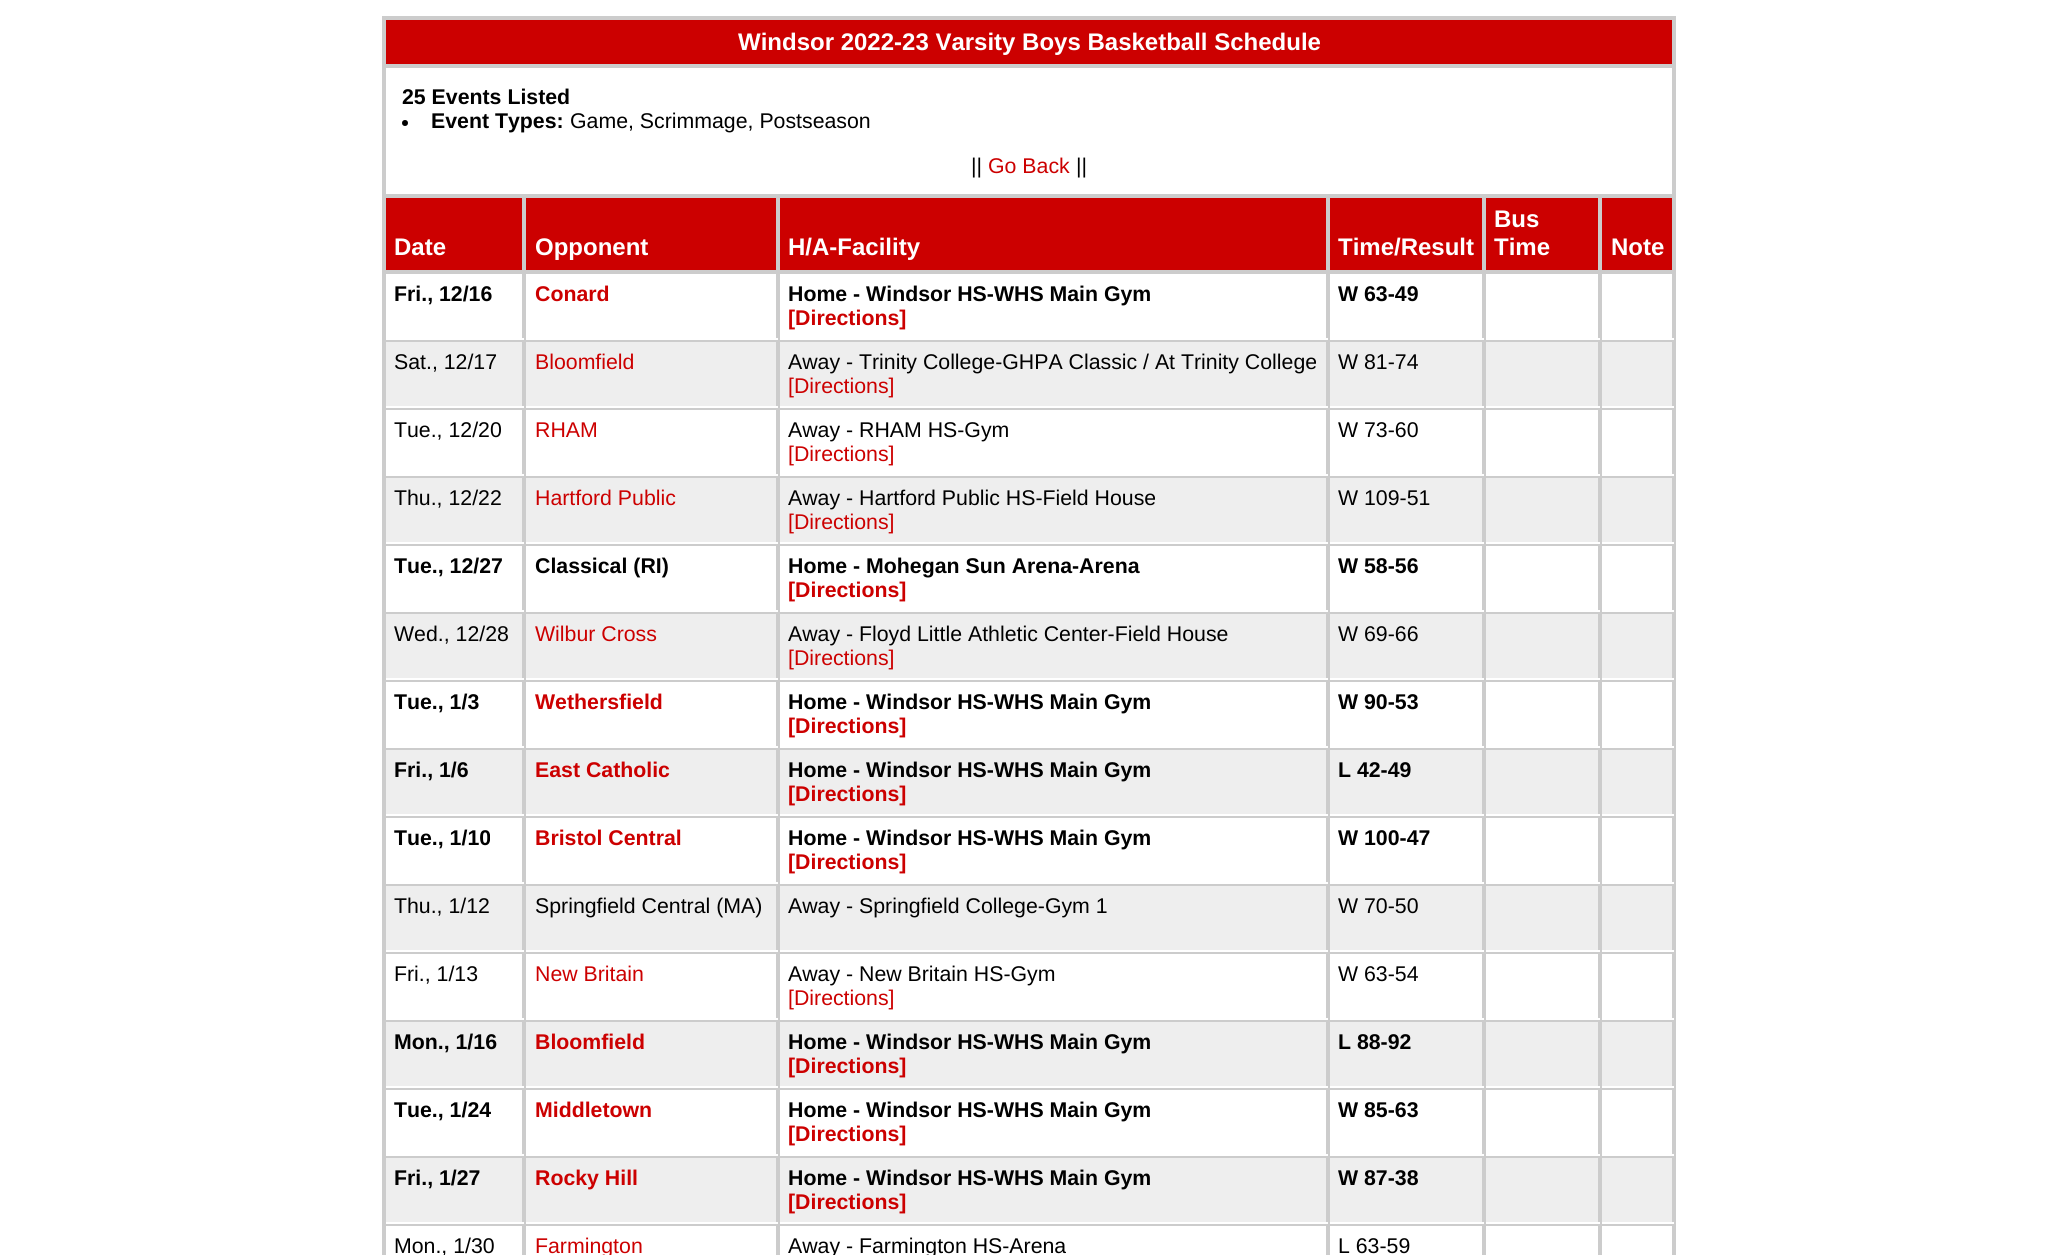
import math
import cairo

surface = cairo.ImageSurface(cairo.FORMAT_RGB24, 2058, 1255)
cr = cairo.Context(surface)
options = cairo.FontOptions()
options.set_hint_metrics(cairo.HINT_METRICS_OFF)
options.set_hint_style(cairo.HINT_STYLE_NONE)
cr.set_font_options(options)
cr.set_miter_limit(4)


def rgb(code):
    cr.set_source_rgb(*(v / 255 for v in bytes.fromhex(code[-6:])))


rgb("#ffffff")
cr.paint()
for x, y, w, h, color in [
    (382, 16, 1294, 1239, "#cccccc"),
    (386, 20, 1286, 44, "#cc0000"),
    (386, 68, 1286, 126, "#ffffff"),
]:
    rgb(color)
    cr.rectangle(x, y, w, h)
    cr.fill()
rgb("#000000")
cr.arc(405, 123, 3, 0, 2 * math.pi)
cr.fill()
for x, y, w, h, color in [
    (386, 198, 136, 72, "#cc0000"),
    (526, 198, 250, 72, "#cc0000"),
    (780, 198, 546, 72, "#cc0000"),
    (1330, 198, 152, 72, "#cc0000"),
    (1486, 198, 112, 72, "#cc0000"),
    (1602, 198, 70, 72, "#cc0000"),
    (386, 274, 1286, 64, "#ffffff"),
    (1598, 272, 2, 68, "#cccccc"),
    (1484, 338, 190, 2, "#ffffff"),
    (1484, 272, 2, 68, "#cccccc"),
    (522, 272, 2, 68, "#cccccc"),
    (384, 338, 140, 2, "#ffffff"),
    (384, 338, 2, 2, "#cccccc"),
    (776, 272, 2, 68, "#cccccc"),
    (524, 338, 254, 2, "#ffffff"),
    (524, 272, 2, 68, "#cccccc"),
    (1326, 272, 2, 68, "#cccccc"),
    (778, 338, 550, 2, "#ffffff"),
    (778, 272, 2, 68, "#cccccc"),
    (1482, 272, 2, 68, "#cccccc"),
    (1328, 338, 156, 2, "#ffffff"),
    (1328, 272, 2, 68, "#cccccc"),
    (1600, 272, 2, 68, "#cccccc"),
    (386, 342, 1286, 64, "#eeeeee"),
    (1598, 340, 2, 68, "#cccccc"),
    (1484, 406, 190, 2, "#ffffff"),
    (1484, 340, 2, 68, "#cccccc"),
    (522, 340, 2, 68, "#cccccc"),
    (384, 406, 140, 2, "#ffffff"),
    (384, 406, 2, 2, "#cccccc"),
    (776, 340, 2, 68, "#cccccc"),
    (524, 406, 254, 2, "#ffffff"),
    (524, 340, 2, 68, "#cccccc"),
    (1326, 340, 2, 68, "#cccccc"),
    (778, 406, 550, 2, "#ffffff"),
    (778, 340, 2, 68, "#cccccc"),
    (1482, 340, 2, 68, "#cccccc"),
    (1328, 406, 156, 2, "#ffffff"),
    (1328, 340, 2, 68, "#cccccc"),
    (1600, 340, 2, 68, "#cccccc"),
    (386, 410, 1286, 64, "#ffffff"),
    (1598, 408, 2, 68, "#cccccc"),
    (1484, 474, 190, 2, "#ffffff"),
    (1484, 408, 2, 68, "#cccccc"),
    (522, 408, 2, 68, "#cccccc"),
    (384, 474, 140, 2, "#ffffff"),
    (384, 474, 2, 2, "#cccccc"),
    (776, 408, 2, 68, "#cccccc"),
    (524, 474, 254, 2, "#ffffff"),
    (524, 408, 2, 68, "#cccccc"),
    (1326, 408, 2, 68, "#cccccc"),
    (778, 474, 550, 2, "#ffffff"),
    (778, 408, 2, 68, "#cccccc"),
    (1482, 408, 2, 68, "#cccccc"),
    (1328, 474, 156, 2, "#ffffff"),
    (1328, 408, 2, 68, "#cccccc"),
    (1600, 408, 2, 68, "#cccccc"),
    (386, 478, 1286, 64, "#eeeeee"),
    (1598, 476, 2, 68, "#cccccc"),
    (1484, 542, 190, 2, "#ffffff"),
    (1484, 476, 2, 68, "#cccccc"),
    (522, 476, 2, 68, "#cccccc"),
    (384, 542, 140, 2, "#ffffff"),
    (384, 542, 2, 2, "#cccccc"),
    (776, 476, 2, 68, "#cccccc"),
    (524, 542, 254, 2, "#ffffff"),
    (524, 476, 2, 68, "#cccccc"),
    (1326, 476, 2, 68, "#cccccc"),
    (778, 542, 550, 2, "#ffffff"),
    (778, 476, 2, 68, "#cccccc"),
    (1482, 476, 2, 68, "#cccccc"),
    (1328, 542, 156, 2, "#ffffff"),
    (1328, 476, 2, 68, "#cccccc"),
    (1600, 476, 2, 68, "#cccccc"),
    (386, 546, 1286, 64, "#ffffff"),
    (1598, 544, 2, 68, "#cccccc"),
    (1484, 610, 190, 2, "#ffffff"),
    (1484, 544, 2, 68, "#cccccc"),
    (522, 544, 2, 68, "#cccccc"),
    (384, 610, 140, 2, "#ffffff"),
    (384, 610, 2, 2, "#cccccc"),
    (776, 544, 2, 68, "#cccccc"),
    (524, 610, 254, 2, "#ffffff"),
    (524, 544, 2, 68, "#cccccc"),
    (1326, 544, 2, 68, "#cccccc"),
    (778, 610, 550, 2, "#ffffff"),
    (778, 544, 2, 68, "#cccccc"),
    (1482, 544, 2, 68, "#cccccc"),
    (1328, 610, 156, 2, "#ffffff"),
    (1328, 544, 2, 68, "#cccccc"),
    (1600, 544, 2, 68, "#cccccc"),
    (386, 614, 1286, 64, "#eeeeee"),
    (1598, 612, 2, 68, "#cccccc"),
    (1484, 678, 190, 2, "#ffffff"),
    (1484, 612, 2, 68, "#cccccc"),
    (522, 612, 2, 68, "#cccccc"),
    (384, 678, 140, 2, "#ffffff"),
    (384, 678, 2, 2, "#cccccc"),
    (776, 612, 2, 68, "#cccccc"),
    (524, 678, 254, 2, "#ffffff"),
    (524, 612, 2, 68, "#cccccc"),
    (1326, 612, 2, 68, "#cccccc"),
    (778, 678, 550, 2, "#ffffff"),
    (778, 612, 2, 68, "#cccccc"),
    (1482, 612, 2, 68, "#cccccc"),
    (1328, 678, 156, 2, "#ffffff"),
    (1328, 612, 2, 68, "#cccccc"),
    (1600, 612, 2, 68, "#cccccc"),
    (386, 682, 1286, 64, "#ffffff"),
    (1598, 680, 2, 68, "#cccccc"),
    (1484, 746, 190, 2, "#ffffff"),
    (1484, 680, 2, 68, "#cccccc"),
    (522, 680, 2, 68, "#cccccc"),
    (384, 746, 140, 2, "#ffffff"),
    (384, 746, 2, 2, "#cccccc"),
    (776, 680, 2, 68, "#cccccc"),
    (524, 746, 254, 2, "#ffffff"),
    (524, 680, 2, 68, "#cccccc"),
    (1326, 680, 2, 68, "#cccccc"),
    (778, 746, 550, 2, "#ffffff"),
    (778, 680, 2, 68, "#cccccc"),
    (1482, 680, 2, 68, "#cccccc"),
    (1328, 746, 156, 2, "#ffffff"),
    (1328, 680, 2, 68, "#cccccc"),
    (1600, 680, 2, 68, "#cccccc"),
    (386, 750, 1286, 64, "#eeeeee"),
    (1598, 748, 2, 68, "#cccccc"),
    (1484, 814, 190, 2, "#ffffff"),
    (1484, 748, 2, 68, "#cccccc"),
    (522, 748, 2, 68, "#cccccc"),
    (384, 814, 140, 2, "#ffffff"),
    (384, 814, 2, 2, "#cccccc"),
    (776, 748, 2, 68, "#cccccc"),
    (524, 814, 254, 2, "#ffffff"),
    (524, 748, 2, 68, "#cccccc"),
    (1326, 748, 2, 68, "#cccccc"),
    (778, 814, 550, 2, "#ffffff"),
    (778, 748, 2, 68, "#cccccc"),
    (1482, 748, 2, 68, "#cccccc"),
    (1328, 814, 156, 2, "#ffffff"),
    (1328, 748, 2, 68, "#cccccc"),
    (1600, 748, 2, 68, "#cccccc"),
    (386, 818, 1286, 64, "#ffffff"),
    (1598, 816, 2, 68, "#cccccc"),
    (1484, 882, 190, 2, "#ffffff"),
    (1484, 816, 2, 68, "#cccccc"),
    (522, 816, 2, 68, "#cccccc"),
    (384, 882, 140, 2, "#ffffff"),
    (384, 882, 2, 2, "#cccccc"),
    (776, 816, 2, 68, "#cccccc"),
    (524, 882, 254, 2, "#ffffff"),
    (524, 816, 2, 68, "#cccccc"),
    (1326, 816, 2, 68, "#cccccc"),
    (778, 882, 550, 2, "#ffffff"),
    (778, 816, 2, 68, "#cccccc"),
    (1482, 816, 2, 68, "#cccccc"),
    (1328, 882, 156, 2, "#ffffff"),
    (1328, 816, 2, 68, "#cccccc"),
    (1600, 816, 2, 68, "#cccccc"),
    (386, 886, 1286, 64, "#eeeeee"),
    (1598, 884, 2, 68, "#cccccc"),
    (1484, 950, 190, 2, "#ffffff"),
    (1484, 884, 2, 68, "#cccccc"),
    (522, 884, 2, 68, "#cccccc"),
    (384, 950, 140, 2, "#ffffff"),
    (384, 950, 2, 2, "#cccccc"),
    (776, 884, 2, 68, "#cccccc"),
    (524, 950, 254, 2, "#ffffff"),
    (524, 884, 2, 68, "#cccccc"),
    (1326, 884, 2, 68, "#cccccc"),
    (778, 950, 550, 2, "#ffffff"),
    (778, 884, 2, 68, "#cccccc"),
    (1482, 884, 2, 68, "#cccccc"),
    (1328, 950, 156, 2, "#ffffff"),
    (1328, 884, 2, 68, "#cccccc"),
    (1600, 884, 2, 68, "#cccccc"),
    (386, 954, 1286, 64, "#ffffff"),
    (1598, 952, 2, 68, "#cccccc"),
    (1484, 1018, 190, 2, "#ffffff"),
    (1484, 952, 2, 68, "#cccccc"),
    (522, 952, 2, 68, "#cccccc"),
    (384, 1018, 140, 2, "#ffffff"),
    (384, 1018, 2, 2, "#cccccc"),
    (776, 952, 2, 68, "#cccccc"),
    (524, 1018, 254, 2, "#ffffff"),
    (524, 952, 2, 68, "#cccccc"),
    (1326, 952, 2, 68, "#cccccc"),
    (778, 1018, 550, 2, "#ffffff"),
    (778, 952, 2, 68, "#cccccc"),
    (1482, 952, 2, 68, "#cccccc"),
    (1328, 1018, 156, 2, "#ffffff"),
    (1328, 952, 2, 68, "#cccccc"),
    (1600, 952, 2, 68, "#cccccc"),
    (386, 1022, 1286, 64, "#eeeeee"),
    (1598, 1020, 2, 68, "#cccccc"),
    (1484, 1086, 190, 2, "#ffffff"),
    (1484, 1020, 2, 68, "#cccccc"),
    (522, 1020, 2, 68, "#cccccc"),
    (384, 1086, 140, 2, "#ffffff"),
    (384, 1086, 2, 2, "#cccccc"),
    (776, 1020, 2, 68, "#cccccc"),
    (524, 1086, 254, 2, "#ffffff"),
    (524, 1020, 2, 68, "#cccccc"),
    (1326, 1020, 2, 68, "#cccccc"),
    (778, 1086, 550, 2, "#ffffff"),
    (778, 1020, 2, 68, "#cccccc"),
    (1482, 1020, 2, 68, "#cccccc"),
    (1328, 1086, 156, 2, "#ffffff"),
    (1328, 1020, 2, 68, "#cccccc"),
    (1600, 1020, 2, 68, "#cccccc"),
    (386, 1090, 1286, 64, "#ffffff"),
    (1598, 1088, 2, 68, "#cccccc"),
    (1484, 1154, 190, 2, "#ffffff"),
    (1484, 1088, 2, 68, "#cccccc"),
    (522, 1088, 2, 68, "#cccccc"),
    (384, 1154, 140, 2, "#ffffff"),
    (384, 1154, 2, 2, "#cccccc"),
    (776, 1088, 2, 68, "#cccccc"),
    (524, 1154, 254, 2, "#ffffff"),
    (524, 1088, 2, 68, "#cccccc"),
    (1326, 1088, 2, 68, "#cccccc"),
    (778, 1154, 550, 2, "#ffffff"),
    (778, 1088, 2, 68, "#cccccc"),
    (1482, 1088, 2, 68, "#cccccc"),
    (1328, 1154, 156, 2, "#ffffff"),
    (1328, 1088, 2, 68, "#cccccc"),
    (1600, 1088, 2, 68, "#cccccc"),
    (386, 1158, 1286, 64, "#eeeeee"),
    (1598, 1156, 2, 68, "#cccccc"),
    (1484, 1222, 190, 2, "#ffffff"),
    (1484, 1156, 2, 68, "#cccccc"),
    (522, 1156, 2, 68, "#cccccc"),
    (384, 1222, 140, 2, "#ffffff"),
    (384, 1222, 2, 2, "#cccccc"),
    (776, 1156, 2, 68, "#cccccc"),
    (524, 1222, 254, 2, "#ffffff"),
    (524, 1156, 2, 68, "#cccccc"),
    (1326, 1156, 2, 68, "#cccccc"),
    (778, 1222, 550, 2, "#ffffff"),
    (778, 1156, 2, 68, "#cccccc"),
    (1482, 1156, 2, 68, "#cccccc"),
    (1328, 1222, 156, 2, "#ffffff"),
    (1328, 1156, 2, 68, "#cccccc"),
    (1600, 1156, 2, 68, "#cccccc"),
    (386, 1226, 1286, 29, "#ffffff"),
    (522, 1224, 4, 31, "#cccccc"),
    (776, 1224, 4, 31, "#cccccc"),
    (1326, 1224, 4, 31, "#cccccc"),
    (1482, 1224, 4, 31, "#cccccc"),
    (1598, 1224, 4, 31, "#cccccc"),
]:
    rgb(color)
    cr.rectangle(x, y, w, h)
    cr.fill()
cr.select_font_face("Liberation Sans", cairo.FONT_SLANT_NORMAL, cairo.FONT_WEIGHT_BOLD)
cr.set_font_size(24)
rgb("#ffffff")
cr.move_to(738, 50)
cr.show_text("Windsor 2022-23 Varsity Boys Basketball Schedule")
cr.set_font_size(21.3)
rgb("#000000")
cr.move_to(402, 104)
cr.show_text("25 Events Listed")
cr.move_to(431, 128)
cr.show_text("Event Types:")
cr.select_font_face("Liberation Sans")
cr.move_to(570, 128)
cr.show_text("Game, Scrimmage, Postseason")
cr.move_to(971, 173)
cr.show_text("||")
rgb("#cc0000")
cr.move_to(988, 173)
cr.show_text("Go Back")
rgb("#000000")
cr.move_to(1076, 173)
cr.show_text("||")
cr.select_font_face("Liberation Sans", cairo.FONT_SLANT_NORMAL, cairo.FONT_WEIGHT_BOLD)
cr.set_font_size(24)
rgb("#ffffff")
for x, y, s in [
    (394, 255, "Date"),
    (535, 255, "Opponent"),
    (788, 255, "H/A-Facility"),
    (1338, 255, "Time/Result"),
    (1494, 227, "Bus"),
    (1494, 255, "Time"),
    (1611, 255, "Note"),
]:
    cr.move_to(x, y)
    cr.show_text(s)
cr.set_font_size(21.3)
rgb("#000000")
cr.move_to(394, 301)
cr.show_text("Fri., 12/16")
rgb("#cc0000")
cr.move_to(535, 301)
cr.show_text("Conard")
rgb("#000000")
cr.move_to(788, 301)
cr.show_text("Home - Windsor HS-WHS Main Gym")
rgb("#cc0000")
cr.move_to(788, 325)
cr.show_text("[Directions]")
rgb("#000000")
cr.move_to(1338, 301)
cr.show_text("W 63-49")
cr.select_font_face("Liberation Sans")
cr.move_to(394, 369)
cr.show_text("Sat., 12/17")
rgb("#cc0000")
cr.move_to(535, 369)
cr.show_text("Bloomfield")
rgb("#000000")
cr.move_to(788, 369)
cr.show_text("Away - Trinity College-GHPA Classic / At Trinity College")
rgb("#cc0000")
cr.move_to(788, 393)
cr.show_text("[Directions]")
rgb("#000000")
cr.move_to(1338, 369)
cr.show_text("W 81-74")
cr.move_to(394, 437)
cr.show_text("Tue., 12/20")
rgb("#cc0000")
cr.move_to(535, 437)
cr.show_text("RHAM")
rgb("#000000")
cr.move_to(788, 437)
cr.show_text("Away - RHAM HS-Gym")
rgb("#cc0000")
cr.move_to(788, 461)
cr.show_text("[Directions]")
rgb("#000000")
cr.move_to(1338, 437)
cr.show_text("W 73-60")
cr.move_to(394, 505)
cr.show_text("Thu., 12/22")
rgb("#cc0000")
cr.move_to(535, 505)
cr.show_text("Hartford Public")
rgb("#000000")
cr.move_to(788, 505)
cr.show_text("Away - Hartford Public HS-Field House")
rgb("#cc0000")
cr.move_to(788, 529)
cr.show_text("[Directions]")
rgb("#000000")
cr.move_to(1338, 505)
cr.show_text("W 109-51")
cr.select_font_face("Liberation Sans", cairo.FONT_SLANT_NORMAL, cairo.FONT_WEIGHT_BOLD)
for x, y, s in [
    (394, 573, "Tue., 12/27"),
    (535, 573, "Classical (RI)"),
    (788, 573, "Home - Mohegan Sun Arena-Arena"),
]:
    cr.move_to(x, y)
    cr.show_text(s)
rgb("#cc0000")
cr.move_to(788, 597)
cr.show_text("[Directions]")
rgb("#000000")
cr.move_to(1338, 573)
cr.show_text("W 58-56")
cr.select_font_face("Liberation Sans")
cr.move_to(394, 641)
cr.show_text("Wed., 12/28")
rgb("#cc0000")
cr.move_to(535, 641)
cr.show_text("Wilbur Cross")
rgb("#000000")
cr.move_to(788, 641)
cr.show_text("Away - Floyd Little Athletic Center-Field House")
rgb("#cc0000")
cr.move_to(788, 665)
cr.show_text("[Directions]")
rgb("#000000")
cr.move_to(1338, 641)
cr.show_text("W 69-66")
cr.select_font_face("Liberation Sans", cairo.FONT_SLANT_NORMAL, cairo.FONT_WEIGHT_BOLD)
cr.move_to(394, 709)
cr.show_text("Tue., 1/3")
rgb("#cc0000")
cr.move_to(535, 709)
cr.show_text("Wethersfield")
rgb("#000000")
cr.move_to(788, 709)
cr.show_text("Home - Windsor HS-WHS Main Gym")
rgb("#cc0000")
cr.move_to(788, 733)
cr.show_text("[Directions]")
rgb("#000000")
cr.move_to(1338, 709)
cr.show_text("W 90-53")
cr.move_to(394, 777)
cr.show_text("Fri., 1/6")
rgb("#cc0000")
cr.move_to(535, 777)
cr.show_text("East Catholic")
rgb("#000000")
cr.move_to(788, 777)
cr.show_text("Home - Windsor HS-WHS Main Gym")
rgb("#cc0000")
cr.move_to(788, 801)
cr.show_text("[Directions]")
rgb("#000000")
cr.move_to(1338, 777)
cr.show_text("L 42-49")
cr.move_to(394, 845)
cr.show_text("Tue., 1/10")
rgb("#cc0000")
cr.move_to(535, 845)
cr.show_text("Bristol Central")
rgb("#000000")
cr.move_to(788, 845)
cr.show_text("Home - Windsor HS-WHS Main Gym")
rgb("#cc0000")
cr.move_to(788, 869)
cr.show_text("[Directions]")
rgb("#000000")
cr.move_to(1338, 845)
cr.show_text("W 100-47")
cr.select_font_face("Liberation Sans")
for x, y, s in [
    (394, 913, "Thu., 1/12"),
    (535, 913, "Springfield Central (MA)"),
    (788, 913, "Away - Springfield College-Gym 1"),
    (1338, 913, "W 70-50"),
    (394, 981, "Fri., 1/13"),
]:
    cr.move_to(x, y)
    cr.show_text(s)
rgb("#cc0000")
cr.move_to(535, 981)
cr.show_text("New Britain")
rgb("#000000")
cr.move_to(788, 981)
cr.show_text("Away - New Britain HS-Gym")
rgb("#cc0000")
cr.move_to(788, 1005)
cr.show_text("[Directions]")
rgb("#000000")
cr.move_to(1338, 981)
cr.show_text("W 63-54")
cr.select_font_face("Liberation Sans", cairo.FONT_SLANT_NORMAL, cairo.FONT_WEIGHT_BOLD)
cr.move_to(394, 1049)
cr.show_text("Mon., 1/16")
rgb("#cc0000")
cr.move_to(535, 1049)
cr.show_text("Bloomfield")
rgb("#000000")
cr.move_to(788, 1049)
cr.show_text("Home - Windsor HS-WHS Main Gym")
rgb("#cc0000")
cr.move_to(788, 1073)
cr.show_text("[Directions]")
rgb("#000000")
cr.move_to(1338, 1049)
cr.show_text("L 88-92")
cr.move_to(394, 1117)
cr.show_text("Tue., 1/24")
rgb("#cc0000")
cr.move_to(535, 1117)
cr.show_text("Middletown")
rgb("#000000")
cr.move_to(788, 1117)
cr.show_text("Home - Windsor HS-WHS Main Gym")
rgb("#cc0000")
cr.move_to(788, 1141)
cr.show_text("[Directions]")
rgb("#000000")
cr.move_to(1338, 1117)
cr.show_text("W 85-63")
cr.move_to(394, 1185)
cr.show_text("Fri., 1/27")
rgb("#cc0000")
cr.move_to(535, 1185)
cr.show_text("Rocky Hill")
rgb("#000000")
cr.move_to(788, 1185)
cr.show_text("Home - Windsor HS-WHS Main Gym")
rgb("#cc0000")
cr.move_to(788, 1209)
cr.show_text("[Directions]")
rgb("#000000")
cr.move_to(1338, 1185)
cr.show_text("W 87-38")
cr.select_font_face("Liberation Sans")
cr.move_to(394, 1253)
cr.show_text("Mon., 1/30")
rgb("#cc0000")
cr.move_to(535, 1253)
cr.show_text("Farmington")
rgb("#000000")
cr.move_to(788, 1253)
cr.show_text("Away - Farmington HS-Arena")
cr.move_to(1338, 1253)
cr.show_text("L 63-59")
surface.write_to_png("page.png")
